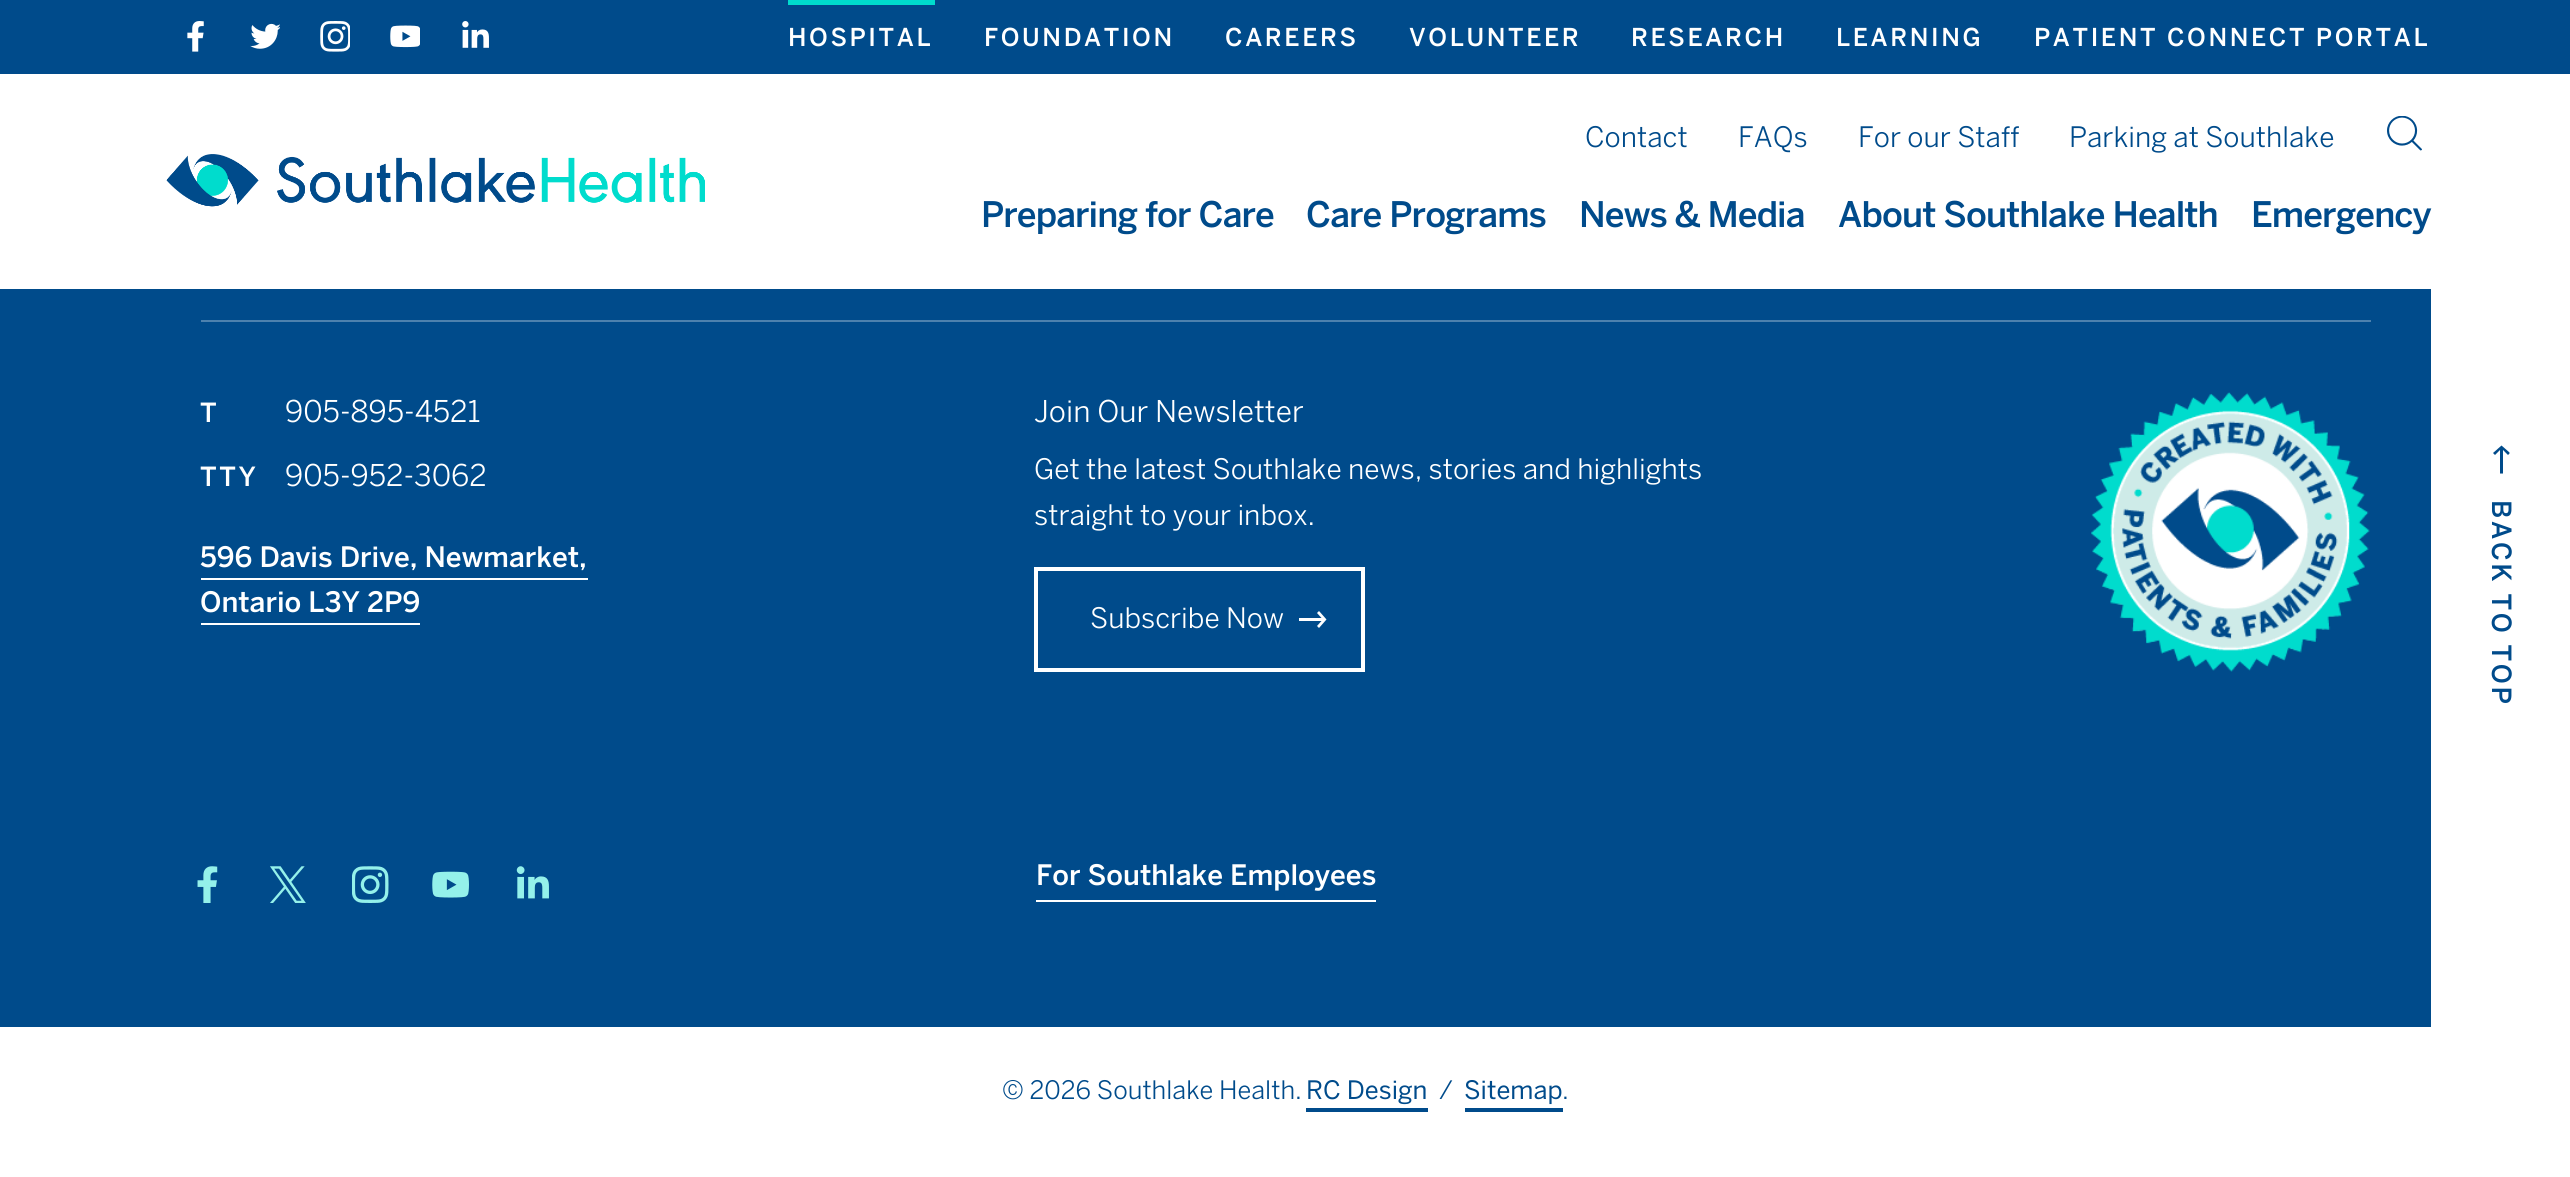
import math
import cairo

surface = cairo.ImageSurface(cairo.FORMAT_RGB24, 2570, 1177)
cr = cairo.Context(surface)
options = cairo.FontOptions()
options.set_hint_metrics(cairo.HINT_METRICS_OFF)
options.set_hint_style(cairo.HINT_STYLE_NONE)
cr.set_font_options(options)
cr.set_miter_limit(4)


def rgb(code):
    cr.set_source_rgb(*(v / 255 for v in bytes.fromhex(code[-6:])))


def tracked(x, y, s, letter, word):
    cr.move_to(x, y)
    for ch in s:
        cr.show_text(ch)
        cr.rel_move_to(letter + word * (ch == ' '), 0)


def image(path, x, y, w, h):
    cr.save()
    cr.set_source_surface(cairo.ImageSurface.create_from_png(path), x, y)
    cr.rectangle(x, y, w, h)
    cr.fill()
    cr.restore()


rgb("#ffffff")
cr.paint()
rgb("#004b8b")
cr.rectangle(0, 0, 2570, 74)
cr.fill()
image("img/1.png", 187, 21, 17, 31)
image("img/2.png", 250, 23, 30, 26)
image("img/3.png", 320, 21, 30, 31)
image("img/4.png", 390, 25, 30, 23)
image("img/5.png", 462, 21, 27, 27)
rgb("#00dccd")
cr.rectangle(788, 0, 147, 5)
cr.fill()
image("img/6.png", 166, 154, 539, 53)
image("img/7.png", 2387, 116, 35, 35)
for x, y, w, h, color in [
    (0, 289, 2431, 738, "#004b8b"),
    (201, 320, 2170, 2, "#4d81ae"),
    (201, 578, 387, 2, "#ffffff"),
    (201, 623, 219, 2, "#ffffff"),
]:
    rgb(color)
    cr.rectangle(x, y, w, h)
    cr.fill()
cr.rectangle(1036, 569, 327, 101)
cr.set_line_width(4)
cr.stroke()
cr.save()
cr.rectangle(1299, 611, 28, 17)
cr.clip()
cr.new_path()
cr.move_to(1319, 611)
cr.line_to(1317, 613)
cr.line_to(1321.5, 618)
cr.line_to(1298.5, 618)
cr.line_to(1298.5, 621)
cr.line_to(1321.5, 621)
cr.line_to(1317, 626)
cr.line_to(1319, 628)
cr.line_to(1326.5, 619.5)
cr.close_path()
cr.fill()
cr.restore()
image("img/8.png", 2091, 392, 279, 280)
image("img/9.png", 197, 866, 21, 37)
image("img/10.png", 270, 866, 36, 37)
image("img/11.png", 352, 866, 37, 37)
image("img/12.png", 432, 871, 37, 27)
image("img/13.png", 516, 866, 33, 33)
cr.rectangle(1036, 900, 340, 2)
cr.fill()
rgb("#004b8b")
cr.new_path()
cr.move_to(2493, 453)
cr.line_to(2501.5, 445.5)
cr.line_to(2509.5, 452.5)
cr.line_to(2509.5, 453.5)
cr.line_to(2508, 455)
cr.line_to(2503, 450)
cr.line_to(2503, 473.5)
cr.line_to(2500, 473.5)
cr.line_to(2500, 450)
cr.line_to(2495, 455)
cr.close_path()
cr.fill()
cr.rectangle(1306, 1108, 122, 4)
cr.fill()
cr.rectangle(1465, 1108, 98, 4)
cr.fill()
cr.select_font_face("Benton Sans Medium")
cr.set_font_size(24.5)
rgb("#ffffff")
for x, y, s in [
    (788, 46, "HOSPITAL"),
    (984, 46, "FOUNDATION"),
    (1225, 46, "CAREERS"),
    (1409, 46, "VOLUNTEER"),
    (1631, 46, "RESEARCH"),
    (1836, 46, "LEARNING"),
    (2034, 46, "PATIENT CONNECT PORTAL"),
]:
    tracked(x, y, s, 2.6, 0)
cr.select_font_face("Benton Sans")
cr.set_font_size(28)
rgb("#004b8b")
for x, y, s in [
    (1585, 147, "Contact"),
    (1738, 147, "FAQs"),
    (1858, 147, "For our Staff"),
    (2069, 147, "Parking at Southlake"),
]:
    cr.move_to(x, y)
    cr.show_text(s)
cr.select_font_face("Benton Sans Medium")
cr.set_font_size(35)
for x, y, s in [
    (981, 227, "Preparing for Care"),
    (1306, 227, "Care Programs"),
    (1579, 227, "News & Media"),
    (1838, 227, "About Southlake Health"),
    (2251, 227, "Emergency"),
]:
    tracked(x, y, s, -0.9, 0)
cr.set_font_size(26.25)
rgb("#ffffff")
tracked(200, 422, "T", 2.6, 0)
cr.select_font_face("Benton Sans")
cr.set_font_size(29.75)
cr.move_to(285, 422)
cr.show_text("905-895-4521")
cr.select_font_face("Benton Sans Medium")
cr.set_font_size(26.25)
tracked(200, 486, "TTY", 2.6, 0)
cr.select_font_face("Benton Sans")
cr.set_font_size(29.75)
cr.move_to(285, 486)
cr.show_text("905-952-3062")
cr.select_font_face("Benton Sans Medium")
cr.set_font_size(28)
cr.move_to(200, 567)
cr.show_text("596 Davis Drive, Newmarket,")
cr.move_to(200, 612)
cr.show_text("Ontario L3Y 2P9")
cr.select_font_face("Benton Sans")
cr.set_font_size(29.75)
cr.move_to(1034, 422)
cr.show_text("Join Our Newsletter")
cr.set_font_size(28)
for x, y, s in [
    (1034, 479, "Get the latest Southlake news, stories and highlights"),
    (1034, 525, "straight to your inbox."),
    (1090, 628, "Subscribe Now"),
]:
    cr.move_to(x, y)
    cr.show_text(s)
cr.select_font_face("Benton Sans Medium")
cr.move_to(1036, 885)
cr.show_text("For Southlake Employees")
cr.set_font_size(26.25)
rgb("#004b8b")
cr.save()
cr.translate(2492, 500)
cr.rotate(90 * math.pi / 180)
tracked(0, 0, "BACK TO TOP", 2.6, 0)
cr.restore()
cr.select_font_face("Benton Sans")
cr.set_font_size(25.25)
cr.move_to(1002, 1099)
cr.show_text("© 2026 Southlake Health.")
cr.select_font_face("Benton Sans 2")
cr.move_to(1306, 1099)
cr.show_text("RC Design")
cr.select_font_face("Benton Sans")
cr.move_to(1439, 1099)
cr.show_text("/")
cr.select_font_face("Benton Sans 2")
cr.move_to(1464, 1099)
cr.show_text("Sitemap")
cr.select_font_face("Benton Sans")
cr.move_to(1562, 1099)
cr.show_text(".")
surface.write_to_png("page.png")
